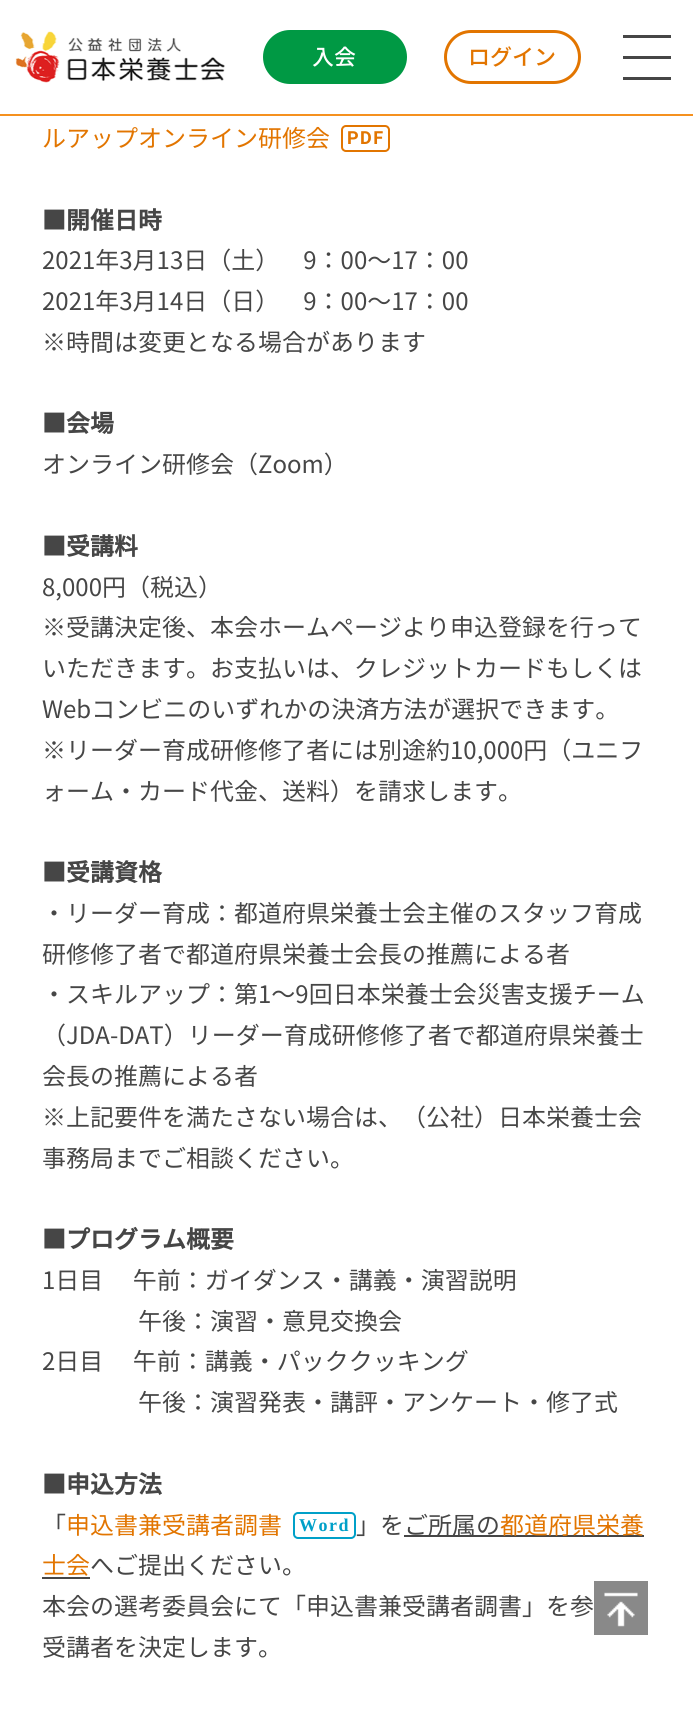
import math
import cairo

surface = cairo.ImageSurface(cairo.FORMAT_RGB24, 693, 1717)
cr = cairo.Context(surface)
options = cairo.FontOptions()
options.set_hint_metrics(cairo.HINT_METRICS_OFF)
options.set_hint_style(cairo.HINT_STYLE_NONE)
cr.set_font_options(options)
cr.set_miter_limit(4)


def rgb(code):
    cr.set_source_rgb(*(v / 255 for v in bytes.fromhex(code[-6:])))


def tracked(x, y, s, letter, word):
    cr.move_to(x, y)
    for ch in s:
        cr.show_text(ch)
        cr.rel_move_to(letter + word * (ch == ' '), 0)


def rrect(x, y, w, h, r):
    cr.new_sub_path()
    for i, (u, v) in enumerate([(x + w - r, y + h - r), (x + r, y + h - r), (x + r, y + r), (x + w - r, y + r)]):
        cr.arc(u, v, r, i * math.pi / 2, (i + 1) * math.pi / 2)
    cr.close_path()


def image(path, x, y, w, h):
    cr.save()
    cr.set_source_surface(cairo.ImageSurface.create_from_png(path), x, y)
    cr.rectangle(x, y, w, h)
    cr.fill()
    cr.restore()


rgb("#ffffff")
cr.paint()
rgb("#f5911f")
cr.rectangle(0, 114, 693, 2)
cr.fill()
image("img/1.png", 15, 31, 210, 52)
for x, y, w, h, color in [
    (623, 35, 48, 3, "#464646"),
    (623, 56, 48, 3, "#464646"),
    (623, 77, 48, 3, "#464646"),
]:
    rgb(color)
    cr.rectangle(x, y, w, h)
    cr.fill()
rgb("#009944")
rrect(264.5, 31.5, 141, 51, 25.5)
cr.fill_preserve()
cr.set_line_width(3)
cr.stroke()
rrect(445.5, 31.5, 134, 51, 25.5)
rgb("#e27500")
cr.stroke()
rrect(342, 126, 47, 25, 4)
cr.set_line_width(2)
cr.stroke()
rrect(294, 1513, 61, 25, 4)
rgb("#00a0c8")
cr.stroke()
rgb("#464646")
cr.rectangle(404, 1535, 240, 2)
cr.fill()
cr.rectangle(42, 1577, 48, 2)
cr.fill()
image("img/2.png", 594, 1581, 54, 54)
cr.select_font_face("Noto Sans JP Medium")
cr.set_font_size(22)
rgb("#ffffff")
cr.move_to(312, 65)
cr.show_text("入会")
rgb("#e27500")
cr.move_to(468, 65)
cr.show_text("ログイン")
cr.select_font_face("Noto Sans JP")
cr.set_font_size(24)
cr.move_to(42, 147)
cr.show_text("ルアップオンライン研修会")
cr.select_font_face("Roboto", cairo.FONT_SLANT_NORMAL, cairo.FONT_WEIGHT_BOLD)
cr.set_font_size(18)
tracked(347, 144, "PDF", 1.5, 0)
cr.select_font_face("Noto Sans JP", cairo.FONT_SLANT_NORMAL, cairo.FONT_WEIGHT_BOLD)
cr.set_font_size(24)
rgb("#464646")
cr.move_to(42, 229)
cr.show_text("■開催日時")
cr.select_font_face("Noto Sans JP")
for x, y, s in [
    (42, 269, "2021年3月13日（土）　9：00～17：00"),
    (42, 310, "2021年3月14日（日）　9：00～17：00"),
    (42, 351, "※時間は変更となる場合があります"),
]:
    cr.move_to(x, y)
    cr.show_text(s)
cr.select_font_face("Noto Sans JP", cairo.FONT_SLANT_NORMAL, cairo.FONT_WEIGHT_BOLD)
cr.move_to(42, 432)
cr.show_text("■会場")
cr.select_font_face("Noto Sans JP")
cr.move_to(42, 473)
cr.show_text("オンライン研修会（Zoom）")
cr.select_font_face("Noto Sans JP", cairo.FONT_SLANT_NORMAL, cairo.FONT_WEIGHT_BOLD)
cr.move_to(42, 555)
cr.show_text("■受講料")
cr.select_font_face("Noto Sans JP")
for x, y, s in [
    (42, 596, "8,000円（税込）"),
    (42, 636, "※受講決定後、本会ホームページより申込登録を行って"),
    (42, 677, "いただきます。お支払いは、クレジットカードもしくは"),
    (42, 718, "Webコンビニのいずれかの決済方法が選択できます。"),
    (42, 759, "※リーダー育成研修修了者には別途約10,000円（ユニフ"),
    (42, 800, "ォーム・カード代金、送料）を請求します。"),
]:
    cr.move_to(x, y)
    cr.show_text(s)
cr.select_font_face("Noto Sans JP", cairo.FONT_SLANT_NORMAL, cairo.FONT_WEIGHT_BOLD)
cr.move_to(42, 881)
cr.show_text("■受講資格")
cr.select_font_face("Noto Sans JP")
for x, y, s in [
    (42, 922, "・リーダー育成：都道府県栄養士会主催のスタッフ育成"),
    (42, 963, "研修修了者で都道府県栄養士会長の推薦による者"),
    (42, 1003, "・スキルアップ：第1～9回日本栄養士会災害支援チーム"),
    (42, 1044, "（JDA-DAT）リーダー育成研修修了者で都道府県栄養士"),
    (42, 1085, "会長の推薦による者"),
    (42, 1126, "※上記要件を満たさない場合は、（公社）日本栄養士会"),
    (42, 1167, "事務局までご相談ください。"),
]:
    cr.move_to(x, y)
    cr.show_text(s)
cr.select_font_face("Noto Sans JP", cairo.FONT_SLANT_NORMAL, cairo.FONT_WEIGHT_BOLD)
cr.move_to(42, 1248)
cr.show_text("■プログラム概要")
cr.select_font_face("Noto Sans JP")
for x, y, s in [
    (42, 1289, "1日目 　午前：ガイダンス・講義・演習説明"),
    (138, 1330, "午後：演習・意見交換会"),
    (42, 1370, "2日目 　午前：講義・パッククッキング"),
    (138, 1411, "午後：演習発表・講評・アンケート・修了式"),
]:
    cr.move_to(x, y)
    cr.show_text(s)
cr.select_font_face("Noto Sans JP", cairo.FONT_SLANT_NORMAL, cairo.FONT_WEIGHT_BOLD)
cr.move_to(42, 1493)
cr.show_text("■申込方法")
cr.select_font_face("Noto Sans JP")
cr.move_to(42, 1534)
cr.show_text("「")
rgb("#e27500")
cr.move_to(66, 1534)
cr.show_text("申込書兼受講者調書")
cr.select_font_face("Liberation Serif", cairo.FONT_SLANT_NORMAL, cairo.FONT_WEIGHT_BOLD)
cr.set_font_size(18)
rgb("#00a0c8")
tracked(299, 1531, "Word", 1.5, 0)
cr.select_font_face("Noto Sans JP")
cr.set_font_size(24)
rgb("#464646")
cr.move_to(356, 1534)
cr.show_text("」を")
cr.move_to(404, 1534)
cr.show_text("ご所属の")
rgb("#e27500")
cr.move_to(500, 1534)
cr.show_text("都道府県栄養")
cr.move_to(42, 1574)
cr.show_text("士会")
rgb("#464646")
for x, y, s in [
    (90, 1574, "へご提出ください。"),
    (42, 1615, "本会の選考委員会にて「申込書兼受講者調書」を参"),
    (42, 1656, "受講者を決定します。"),
]:
    cr.move_to(x, y)
    cr.show_text(s)
surface.write_to_png("page.png")
